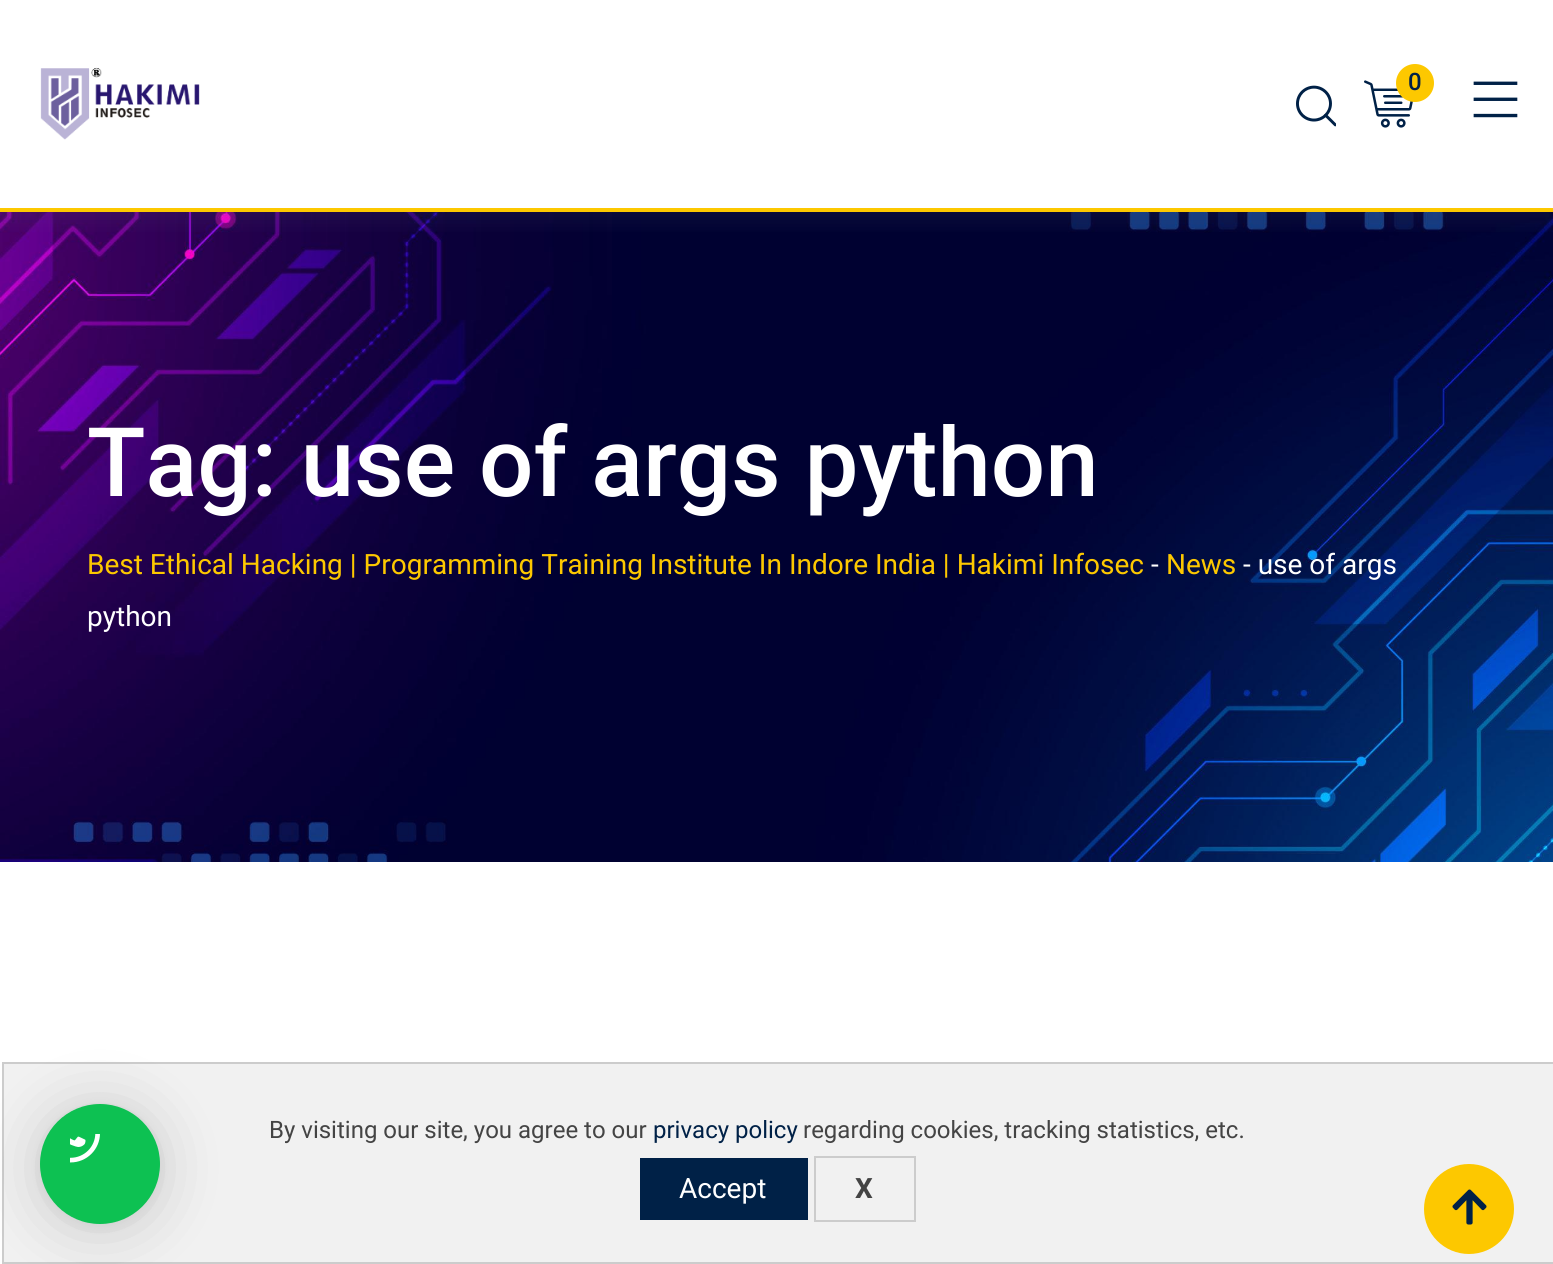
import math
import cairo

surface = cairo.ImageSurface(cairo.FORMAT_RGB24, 1553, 1264)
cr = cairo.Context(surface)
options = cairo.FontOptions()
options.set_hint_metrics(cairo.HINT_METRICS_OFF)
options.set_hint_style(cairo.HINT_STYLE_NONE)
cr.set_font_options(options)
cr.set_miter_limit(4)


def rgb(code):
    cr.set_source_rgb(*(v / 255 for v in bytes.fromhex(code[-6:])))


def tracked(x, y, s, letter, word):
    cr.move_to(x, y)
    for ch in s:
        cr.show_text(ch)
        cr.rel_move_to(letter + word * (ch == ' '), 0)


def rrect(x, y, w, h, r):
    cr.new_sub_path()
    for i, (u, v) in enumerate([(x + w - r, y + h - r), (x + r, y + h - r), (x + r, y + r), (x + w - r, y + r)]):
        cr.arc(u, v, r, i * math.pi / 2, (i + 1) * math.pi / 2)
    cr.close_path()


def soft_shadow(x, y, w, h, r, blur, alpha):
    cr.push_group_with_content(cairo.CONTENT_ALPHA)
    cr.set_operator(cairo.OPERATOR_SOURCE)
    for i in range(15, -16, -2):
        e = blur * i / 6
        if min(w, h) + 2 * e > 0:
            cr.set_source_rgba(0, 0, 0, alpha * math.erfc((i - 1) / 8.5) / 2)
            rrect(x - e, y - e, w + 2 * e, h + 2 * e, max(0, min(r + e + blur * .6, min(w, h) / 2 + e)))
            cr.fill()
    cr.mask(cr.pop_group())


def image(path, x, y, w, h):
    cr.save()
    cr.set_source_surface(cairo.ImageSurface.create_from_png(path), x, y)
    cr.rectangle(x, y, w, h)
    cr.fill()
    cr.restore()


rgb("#ffffff")
cr.paint()
image("img/4.png", 0, 212, 1553, 650)
cr.save()
cr.rectangle(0, 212, 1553, 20)
cr.clip()
rgb("#576580")
soft_shadow(0, 10, 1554, 212, 0, 10, 0.12)
cr.restore()
rgb("#fdc800")
cr.rectangle(0, 208, 1553, 4)
cr.fill()
image("img/1.png", 40, 67, 160, 73)
image("img/2.png", 1296, 85, 40, 42)
image("img/3.png", 1364, 80, 49, 48)
cr.arc(1415, 83, 19, 0, 2 * math.pi)
cr.fill()
rgb("#f1f1f1")
cr.rectangle(3, 1063, 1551, 200)
cr.fill_preserve()
rgb("#cccccc")
cr.stroke()
rgb("#000000")
soft_shadow(40, 1108, 120, 120, 60, 32, 0.16)
soft_shadow(40, 1106, 120, 120, 60, 6, 0.06)
rgb("#0dc152")
cr.arc(100, 1164, 60, 0, 2 * math.pi)
cr.fill()
image("img/5.png", 70, 1134, 30, 29)
rgb("#002147")
cr.rectangle(640, 1158, 168, 62)
cr.fill()
cr.rectangle(815, 1157, 100, 64)
rgb("#cccccc")
cr.stroke()
rgb("#fdc800")
cr.arc(1469, 1209, 45, 0, 2 * math.pi)
cr.fill()
image("img/6.png", 1452, 1189, 35, 36)
cr.select_font_face("Roboto Medium")
cr.set_font_size(24)
rgb("#002147")
cr.move_to(1408, 90)
cr.show_text("0")
cr.select_font_face("Liberation Serif", cairo.FONT_SLANT_NORMAL, cairo.FONT_WEIGHT_BOLD)
cr.set_font_size(48)
cr.save()
cr.translate(1484, 78)
cr.rotate(90 * math.pi / 180)
tracked(0, 0, "| | |", -3.25, 0)
cr.restore()
cr.select_font_face("Roboto Medium")
cr.set_font_size(96)
rgb("#ffffff")
cr.move_to(87, 496)
cr.show_text("Tag: use of args python")
cr.select_font_face("Roboto")
cr.set_font_size(28)
rgb("#fdc800")
cr.move_to(87, 574)
cr.show_text("Best Ethical Hacking | Programming Training Institute In Indore India | Hakimi Infosec")
rgb("#ffffff")
cr.move_to(1151, 574)
cr.show_text("-")
rgb("#fdc800")
cr.move_to(1166, 574)
cr.show_text("News")
rgb("#ffffff")
cr.move_to(1243, 574)
cr.show_text("- use of args")
cr.move_to(87, 626)
cr.show_text("python")
cr.set_font_size(24)
rgb("#444444")
cr.move_to(269, 1138)
cr.show_text("By visiting our site, you agree to our")
rgb("#002147")
cr.move_to(653, 1138)
cr.show_text("privacy policy")
rgb("#444444")
cr.move_to(803, 1138)
cr.show_text("regarding cookies, tracking statistics, etc.")
cr.set_font_size(28)
rgb("#ffffff")
cr.move_to(679, 1198)
cr.show_text("Accept")
cr.select_font_face("Roboto", cairo.FONT_SLANT_NORMAL, cairo.FONT_WEIGHT_BOLD)
rgb("#444444")
cr.move_to(855, 1198)
cr.show_text("X")
surface.write_to_png("page.png")
